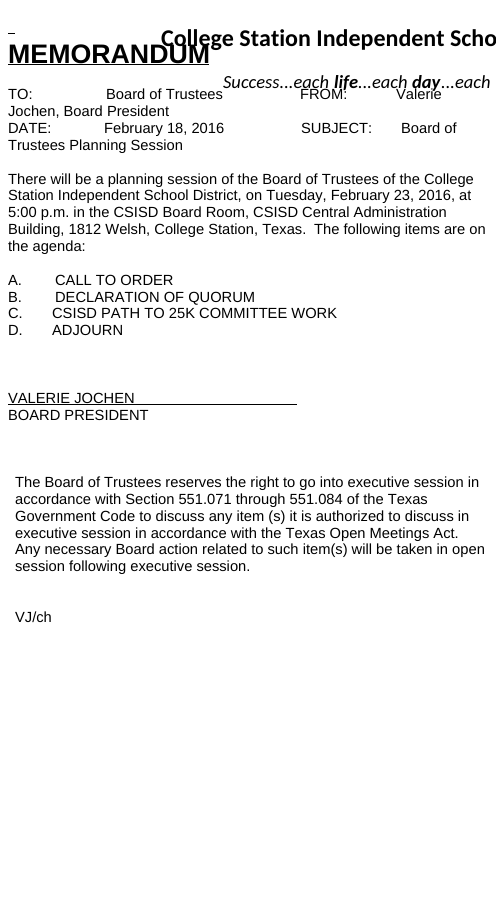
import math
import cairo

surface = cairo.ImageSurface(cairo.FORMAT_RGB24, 496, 905)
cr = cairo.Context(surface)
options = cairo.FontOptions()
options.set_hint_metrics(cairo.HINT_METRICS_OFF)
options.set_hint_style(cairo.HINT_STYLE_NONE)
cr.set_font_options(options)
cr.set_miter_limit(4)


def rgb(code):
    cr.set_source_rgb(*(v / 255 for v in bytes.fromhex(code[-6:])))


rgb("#ffffff")
cr.paint()
for x, y, w, h, color in [
    (8, 33, 7, 1, "#000000"),
    (8, 64, 201, 1, "#000000"),
    (8, 404, 289, 1, "#000000"),
]:
    rgb(color)
    cr.rectangle(x, y, w, h)
    cr.fill()
cr.select_font_face("Carlito", cairo.FONT_SLANT_NORMAL, cairo.FONT_WEIGHT_BOLD)
cr.set_font_size(24)
cr.move_to(161, 46)
cr.show_text("College Station Independent Scho")
cr.select_font_face("Carlito", cairo.FONT_SLANT_ITALIC)
cr.set_font_size(18.5)
cr.move_to(223, 88)
cr.show_text("Success...each")
cr.select_font_face("Carlito", cairo.FONT_SLANT_ITALIC, cairo.FONT_WEIGHT_BOLD)
cr.move_to(334, 88)
cr.show_text("life")
cr.select_font_face("Carlito", cairo.FONT_SLANT_ITALIC)
cr.move_to(358, 88)
cr.show_text("...each")
cr.select_font_face("Carlito", cairo.FONT_SLANT_ITALIC, cairo.FONT_WEIGHT_BOLD)
cr.move_to(412, 88)
cr.show_text("day")
cr.select_font_face("Carlito", cairo.FONT_SLANT_ITALIC)
cr.move_to(441, 88)
cr.show_text("...each")
cr.select_font_face("Liberation Sans", cairo.FONT_SLANT_NORMAL, cairo.FONT_WEIGHT_BOLD)
cr.set_font_size(26.75)
cr.move_to(8, 63)
cr.show_text("MEMORANDUM")
cr.select_font_face("Liberation Sans")
cr.set_font_size(14.7)
for x, y, s in [
    (8, 99, "TO:"),
    (106, 99, "Board of Trustees"),
    (300, 99, "FROM:"),
    (396, 99, "Valerie"),
    (8, 116, "Jochen, Board President"),
    (8, 133, "DATE:"),
    (104, 133, "February 18, 2016"),
    (301, 133, "SUBJECT:"),
    (401, 133, "Board of"),
    (8, 150, "Trustees Planning Session"),
    (8, 184, "There will be a planning session of the Board of Trustees of the College"),
    (8, 200, "Station Independent School District, on Tuesday, February 23, 2016, at"),
    (8, 217, "5:00 p.m. in the CSISD Board Room, CSISD Central Administration"),
    (8, 234, "Building, 1812 Welsh, College Station, Texas."),
    (314, 234, "The following items are on"),
    (8, 251, "the agenda:"),
    (8, 285, "A."),
    (55, 285, "CALL TO ORDER"),
    (8, 302, "B."),
    (55, 302, "DECLARATION OF QUORUM"),
    (8, 318, "C."),
    (52, 318, "CSISD PATH TO 25K COMMITTEE WORK"),
    (8, 335, "D."),
    (52, 335, "ADJOURN"),
    (8, 403, "VALERIE JOCHEN"),
    (8, 420, "BOARD PRESIDENT"),
    (15, 487, "The Board of Trustees reserves the right to go into executive session in"),
    (15, 504, "accordance with Section 551.071 through 551.084 of the Texas"),
    (15, 521, "Government Code to discuss any item (s) it is authorized to discuss in"),
    (15, 538, "executive session in accordance with the Texas Open Meetings Act."),
    (15, 554, "Any necessary Board action related to such item(s) will be taken in open"),
    (15, 571, "session following executive session."),
    (15, 622, "VJ/ch"),
]:
    cr.move_to(x, y)
    cr.show_text(s)
surface.write_to_png("page.png")
